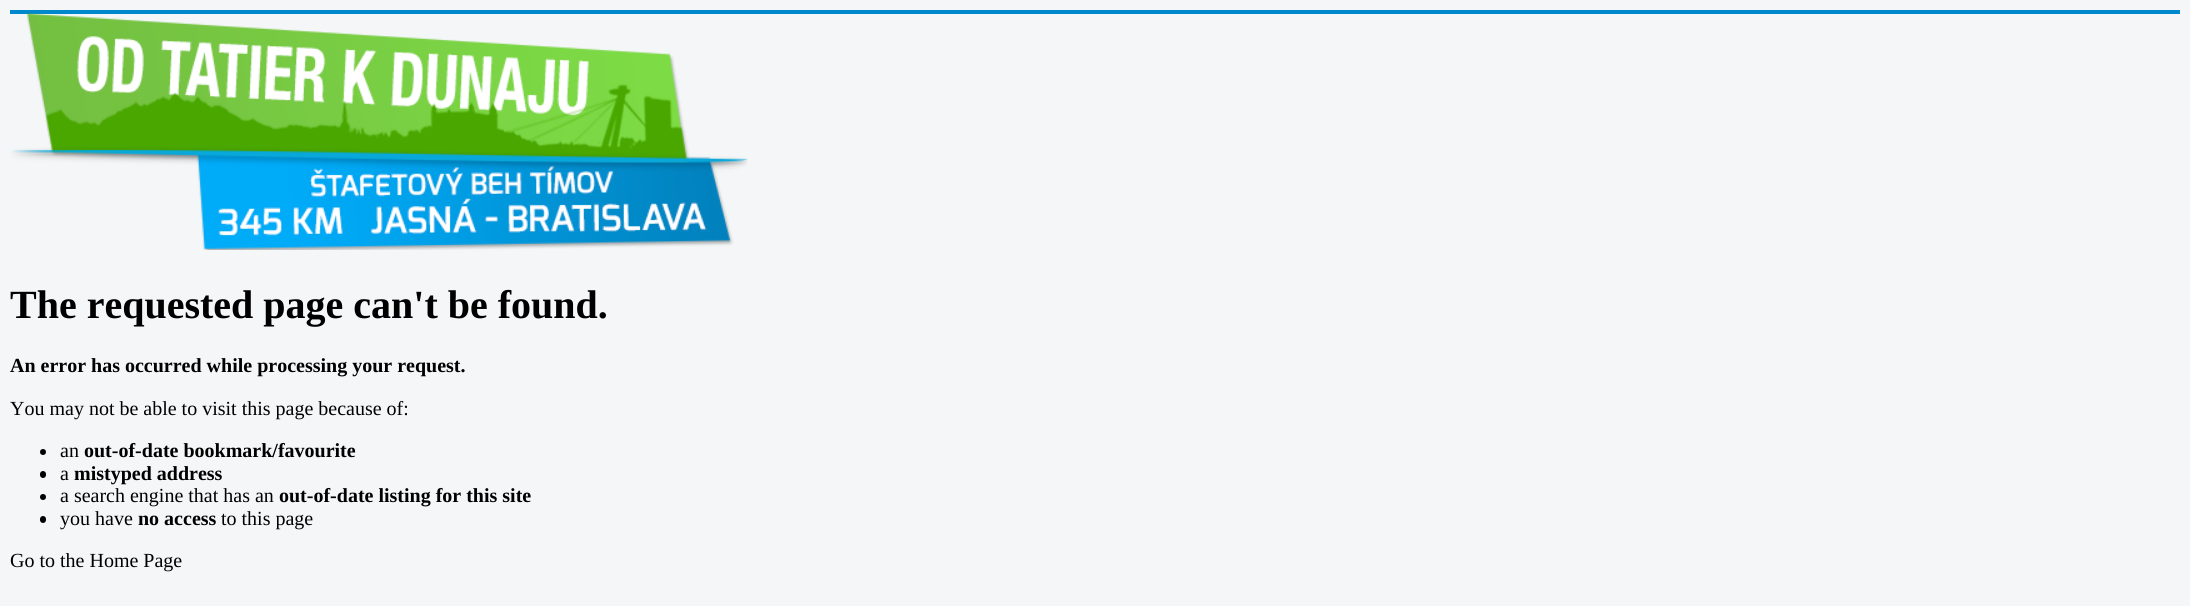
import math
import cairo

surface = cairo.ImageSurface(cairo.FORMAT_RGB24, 2190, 606)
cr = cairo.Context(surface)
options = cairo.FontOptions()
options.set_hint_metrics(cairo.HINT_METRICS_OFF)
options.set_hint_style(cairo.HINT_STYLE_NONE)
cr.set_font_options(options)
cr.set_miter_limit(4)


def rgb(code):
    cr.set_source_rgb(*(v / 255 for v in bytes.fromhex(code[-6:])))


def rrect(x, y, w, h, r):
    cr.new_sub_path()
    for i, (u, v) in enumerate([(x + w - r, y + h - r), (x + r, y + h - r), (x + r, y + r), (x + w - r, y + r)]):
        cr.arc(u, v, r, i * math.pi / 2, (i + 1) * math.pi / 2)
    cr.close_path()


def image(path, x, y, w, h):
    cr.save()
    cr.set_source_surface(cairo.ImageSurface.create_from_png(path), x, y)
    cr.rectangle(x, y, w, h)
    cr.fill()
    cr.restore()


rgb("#f4f6f7")
cr.paint()
rgb("#0088cc")
cr.rectangle(10, 10, 2170, 4)
cr.fill()
image("img/1.png", 11, 13, 737, 237)
rgb("#000000")
cr.arc(43, 452, 3, 0, 2 * math.pi)
cr.fill()
rrect(40, 471, 6, 7, 3)
cr.fill()
cr.arc(43, 497, 3, 0, 2 * math.pi)
cr.fill()
rrect(40, 516, 6, 7, 3)
cr.fill()
cr.select_font_face("Liberation Serif", cairo.FONT_SLANT_NORMAL, cairo.FONT_WEIGHT_BOLD)
cr.set_font_size(40)
cr.move_to(10, 318)
cr.show_text("The requested page can't be found.")
cr.set_font_size(20)
cr.move_to(10, 372)
cr.show_text("An error has occurred while processing your request.")
cr.select_font_face("Liberation Serif")
cr.move_to(10, 415)
cr.show_text("You may not be able to visit this page because of:")
cr.move_to(60, 457)
cr.show_text("an")
cr.select_font_face("Liberation Serif", cairo.FONT_SLANT_NORMAL, cairo.FONT_WEIGHT_BOLD)
cr.move_to(84, 457)
cr.show_text("out-of-date bookmark/favourite")
cr.select_font_face("Liberation Serif")
cr.move_to(60, 480)
cr.show_text("a")
cr.select_font_face("Liberation Serif", cairo.FONT_SLANT_NORMAL, cairo.FONT_WEIGHT_BOLD)
cr.move_to(74, 480)
cr.show_text("mistyped address")
cr.select_font_face("Liberation Serif")
cr.move_to(60, 502)
cr.show_text("a search engine that has an")
cr.select_font_face("Liberation Serif", cairo.FONT_SLANT_NORMAL, cairo.FONT_WEIGHT_BOLD)
cr.move_to(279, 502)
cr.show_text("out-of-date listing for this site")
cr.select_font_face("Liberation Serif")
cr.move_to(60, 525)
cr.show_text("you have")
cr.select_font_face("Liberation Serif", cairo.FONT_SLANT_NORMAL, cairo.FONT_WEIGHT_BOLD)
cr.move_to(138, 525)
cr.show_text("no access")
cr.select_font_face("Liberation Serif")
cr.move_to(221, 525)
cr.show_text("to this page")
cr.move_to(10, 567)
cr.show_text("Go to the Home Page")
surface.write_to_png("page.png")
